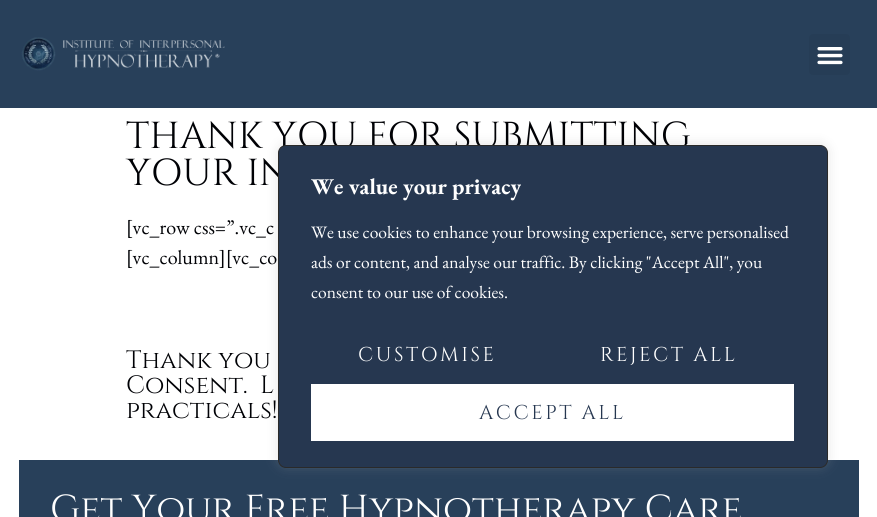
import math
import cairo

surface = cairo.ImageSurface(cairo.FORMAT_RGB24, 877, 517)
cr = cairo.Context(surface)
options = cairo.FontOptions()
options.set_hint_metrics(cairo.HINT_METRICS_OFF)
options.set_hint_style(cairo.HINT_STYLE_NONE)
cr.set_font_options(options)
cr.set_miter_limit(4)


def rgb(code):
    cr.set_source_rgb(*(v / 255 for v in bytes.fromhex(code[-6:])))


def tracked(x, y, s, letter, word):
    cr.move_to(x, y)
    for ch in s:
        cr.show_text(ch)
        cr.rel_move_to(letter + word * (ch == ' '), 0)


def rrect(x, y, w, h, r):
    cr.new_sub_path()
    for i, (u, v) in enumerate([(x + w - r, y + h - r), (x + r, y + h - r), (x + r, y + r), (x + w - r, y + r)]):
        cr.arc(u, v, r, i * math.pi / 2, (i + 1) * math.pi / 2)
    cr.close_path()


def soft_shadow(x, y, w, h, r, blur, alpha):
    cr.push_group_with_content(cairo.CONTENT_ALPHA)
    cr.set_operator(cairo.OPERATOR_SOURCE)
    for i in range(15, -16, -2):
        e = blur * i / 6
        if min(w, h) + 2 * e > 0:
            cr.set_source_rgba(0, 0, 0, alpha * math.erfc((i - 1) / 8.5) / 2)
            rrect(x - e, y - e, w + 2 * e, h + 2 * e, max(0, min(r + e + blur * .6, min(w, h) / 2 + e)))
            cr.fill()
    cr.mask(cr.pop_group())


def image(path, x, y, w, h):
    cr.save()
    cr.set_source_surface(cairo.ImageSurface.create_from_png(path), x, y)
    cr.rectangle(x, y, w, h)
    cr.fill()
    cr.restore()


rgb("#ffffff")
cr.paint()
rgb("#28405a")
cr.rectangle(0, 0, 877, 108)
cr.fill()
image("img/1.png", 21, 37, 204, 34)
rgb("#263d56")
rrect(809, 34, 41, 41, 4)
cr.fill()
image("img/2.png", 817, 47, 26, 18)
rgb("#28405a")
cr.rectangle(19, 460, 840, 57)
cr.fill()
rgb("#acabab")
soft_shadow(278, 144, 550, 322, 8, 6, 0.3)
cr.select_font_face("Cinzel")
cr.set_font_size(37.5)
rgb("#000105")
cr.move_to(126, 148)
cr.show_text("THANK YOU FOR SUBMITTING")
cr.move_to(126, 185)
cr.show_text("YOUR IN")
cr.select_font_face("EB Garamond")
cr.set_font_size(20)
cr.move_to(126, 234)
cr.show_text("[vc_row css=”.vc_c")
cr.move_to(126, 264)
cr.show_text("[vc_column][vc_co")
cr.select_font_face("Cinzel")
cr.set_font_size(25)
for x, y, s in [
    (126, 368, "Thank you"),
    (126, 393, "Consent.  L"),
    (126, 418, "practicals!"),
]:
    cr.move_to(x, y)
    cr.show_text(s)
rgb("#263750")
rrect(278.5, 145.5, 549, 322, 7.5)
cr.fill_preserve()
rgb("#2a2a2a")
cr.set_line_width(1)
cr.stroke()
cr.select_font_face("EB Garamond", cairo.FONT_SLANT_NORMAL, cairo.FONT_WEIGHT_BOLD)
cr.set_font_size(22.5)
rgb("#ffffff")
cr.move_to(311, 194)
cr.show_text("We value your privacy")
cr.select_font_face("EB Garamond")
cr.set_font_size(17.5)
for x, y, s in [
    (311, 238, "We use cookies to enhance your browsing experience, serve personalised"),
    (311, 268, "ads or content, and analyse our traffic. By clicking \"Accept All\", you"),
    (311, 298, "consent to our use of cookies."),
]:
    cr.move_to(x, y)
    cr.show_text(s)
cr.select_font_face("Cinzel")
cr.set_font_size(20)
tracked(358, 361, "CUSTOMISE", 2.5, 0)
tracked(600, 361, "REJECT ALL", 2.5, 0)
cr.rectangle(311, 384, 483, 57)
cr.fill()
rgb("#263750")
tracked(479, 419, "ACCEPT ALL", 2.5, 0)
cr.set_font_size(37.5)
rgb("#ffffff")
cr.move_to(50, 521)
cr.show_text("Get Your Free Hypnotherapy Care")
surface.write_to_png("page.png")
